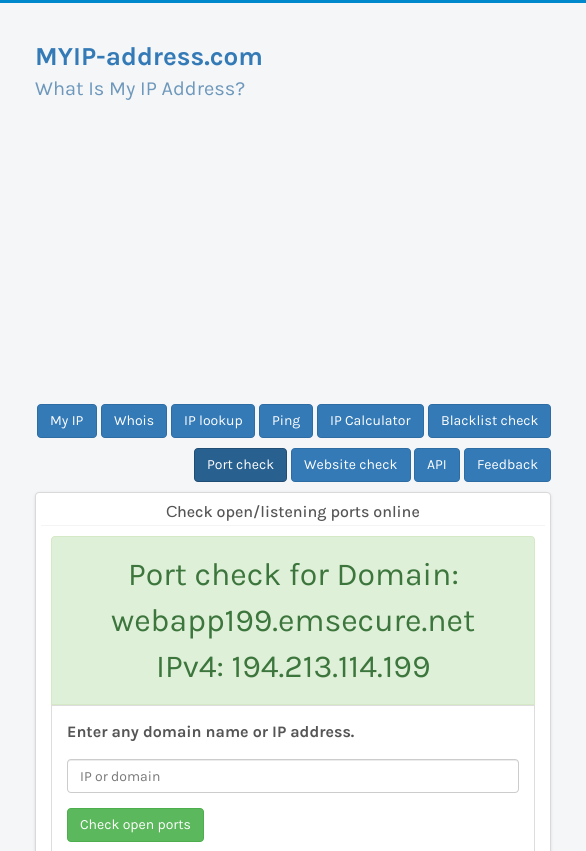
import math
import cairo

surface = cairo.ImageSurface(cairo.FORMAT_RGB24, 586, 851)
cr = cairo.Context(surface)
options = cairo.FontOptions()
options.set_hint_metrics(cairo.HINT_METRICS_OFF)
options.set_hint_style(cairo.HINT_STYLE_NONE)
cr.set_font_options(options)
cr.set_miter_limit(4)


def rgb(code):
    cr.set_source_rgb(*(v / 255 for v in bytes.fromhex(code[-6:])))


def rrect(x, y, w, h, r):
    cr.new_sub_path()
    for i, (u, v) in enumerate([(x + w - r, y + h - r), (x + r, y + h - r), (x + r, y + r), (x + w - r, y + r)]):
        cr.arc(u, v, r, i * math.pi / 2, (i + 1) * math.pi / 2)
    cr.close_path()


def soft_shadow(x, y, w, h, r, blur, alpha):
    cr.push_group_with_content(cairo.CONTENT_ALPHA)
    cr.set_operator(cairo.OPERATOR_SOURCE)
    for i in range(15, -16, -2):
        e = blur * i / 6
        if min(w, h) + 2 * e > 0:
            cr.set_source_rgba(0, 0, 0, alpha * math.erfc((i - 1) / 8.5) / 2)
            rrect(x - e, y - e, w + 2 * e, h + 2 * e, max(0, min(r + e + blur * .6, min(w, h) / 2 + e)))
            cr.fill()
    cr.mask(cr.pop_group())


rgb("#f4f6f7")
cr.paint()
rgb("#0088cc")
cr.rectangle(0, 0, 586, 3)
cr.fill()
rgb("#337ab7")
rrect(37.5, 404.5, 59, 33, 3.5)
cr.fill_preserve()
rgb("#2e6da4")
cr.set_line_width(1)
cr.stroke()
rgb("#337ab7")
rrect(101.5, 404.5, 65, 33, 3.5)
cr.fill_preserve()
rgb("#2e6da4")
cr.stroke()
rgb("#337ab7")
rrect(171.5, 404.5, 83, 33, 3.5)
cr.fill_preserve()
rgb("#2e6da4")
cr.stroke()
rgb("#337ab7")
rrect(259.5, 404.5, 53, 33, 3.5)
cr.fill_preserve()
rgb("#2e6da4")
cr.stroke()
rgb("#337ab7")
rrect(317.5, 404.5, 106, 33, 3.5)
cr.fill_preserve()
rgb("#2e6da4")
cr.stroke()
rgb("#337ab7")
rrect(428.5, 404.5, 122, 33, 3.5)
cr.fill_preserve()
rgb("#2e6da4")
cr.stroke()
rgb("#286090")
rrect(194.5, 448.5, 92, 33, 3.5)
cr.fill_preserve()
rgb("#204d74")
cr.stroke()
rgb("#337ab7")
rrect(291.5, 448.5, 119, 33, 3.5)
cr.fill_preserve()
rgb("#2e6da4")
cr.stroke()
rgb("#337ab7")
rrect(414.5, 448.5, 45, 33, 3.5)
cr.fill_preserve()
rgb("#2e6da4")
cr.stroke()
rgb("#337ab7")
rrect(464.5, 448.5, 86, 33, 3.5)
cr.fill_preserve()
rgb("#2e6da4")
cr.stroke()
rgb("#000000")
soft_shadow(35, 493, 516, 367, 4, 1.5, 0.1)
rgb("#ffffff")
rrect(35, 492, 516, 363, 4)
cr.fill()
rrect(35.5, 492.5, 515, 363, 3.5)
cr.set_source_rgba(0, 0, 0, 0.15)
cr.stroke()
rgb("#f4f4f4")
cr.rectangle(41, 525, 504, 1)
cr.fill()
rgb("#dff0d8")
cr.new_path()
cr.move_to(55, 536.5)
cr.line_to(531, 536.5)
cr.curve_to(533, 536.5, 534.5, 538, 534.5, 540)
cr.line_to(534.5, 704.5)
cr.line_to(51.5, 704.5)
cr.line_to(51.5, 540)
cr.curve_to(51.5, 538, 53, 536.5, 55, 536.5)
cr.close_path()
cr.fill_preserve()
rgb("#d6e9c6")
cr.stroke()
cr.rectangle(51.5, 705.5, 483, 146)
rgb("#dddddd")
cr.stroke()
rgb("#ececec")
cr.new_path()
cr.move_to(71, 761)
cr.line_to(515, 761)
cr.curve_to(517, 761, 518, 762, 518, 764)
cr.curve_to(518, 762, 517, 760, 515, 760)
cr.line_to(70, 760)
cr.line_to(68, 762)
cr.line_to(68, 764)
cr.curve_to(68, 762, 69, 761, 71, 761)
cr.close_path()
cr.fill()
rrect(67.5, 759.5, 451, 33, 3.5)
rgb("#cccccc")
cr.stroke()
rgb("#5cb85c")
rrect(67.5, 808.5, 136, 33, 3.5)
cr.fill_preserve()
rgb("#4cae4c")
cr.stroke()
cr.select_font_face("Karla", cairo.FONT_SLANT_NORMAL, cairo.FONT_WEIGHT_BOLD)
cr.set_font_size(26)
rgb("#337ab7")
cr.move_to(35, 65)
cr.show_text("MYIP-address.com")
cr.select_font_face("Karla")
cr.set_font_size(20)
rgb("#6d97bb")
cr.move_to(35, 95)
cr.show_text("What Is My IP Address?")
cr.set_font_size(14)
rgb("#ffffff")
for x, y, s in [
    (50, 425, "My IP"),
    (114, 425, "Whois"),
    (184, 425, "IP lookup"),
    (272, 425, "Ping"),
    (330, 425, "IP Calculator"),
    (441, 425, "Blacklist check"),
    (207, 469, "Port check"),
    (304, 469, "Website check"),
    (427, 469, "API"),
    (477, 469, "Feedback"),
]:
    cr.move_to(x, y)
    cr.show_text(s)
cr.select_font_face("Liberation Sans")
cr.set_font_size(16)
rgb("#555555")
cr.move_to(166, 517)
cr.show_text("С")
cr.select_font_face("Karla Medium")
cr.move_to(177, 517)
cr.show_text("heck open/listening ports online")
cr.select_font_face("Karla")
cr.set_font_size(32)
rgb("#3c763d")
for x, y, s in [
    (128, 585, "Port check for Domain:"),
    (111, 631, "webapp199.emsecure.net"),
    (156, 677, "IPv4: 194.213.114.199"),
]:
    cr.move_to(x, y)
    cr.show_text(s)
cr.select_font_face("Karla", cairo.FONT_SLANT_NORMAL, cairo.FONT_WEIGHT_BOLD)
cr.set_font_size(16)
rgb("#555555")
cr.move_to(67, 737)
cr.show_text("Enter any domain name or IP address.")
cr.select_font_face("Karla")
cr.set_font_size(14)
rgb("#777777")
cr.move_to(80, 781)
cr.show_text("IP or domain")
rgb("#ffffff")
cr.move_to(80, 829)
cr.show_text("Check open ports")
surface.write_to_png("page.png")
